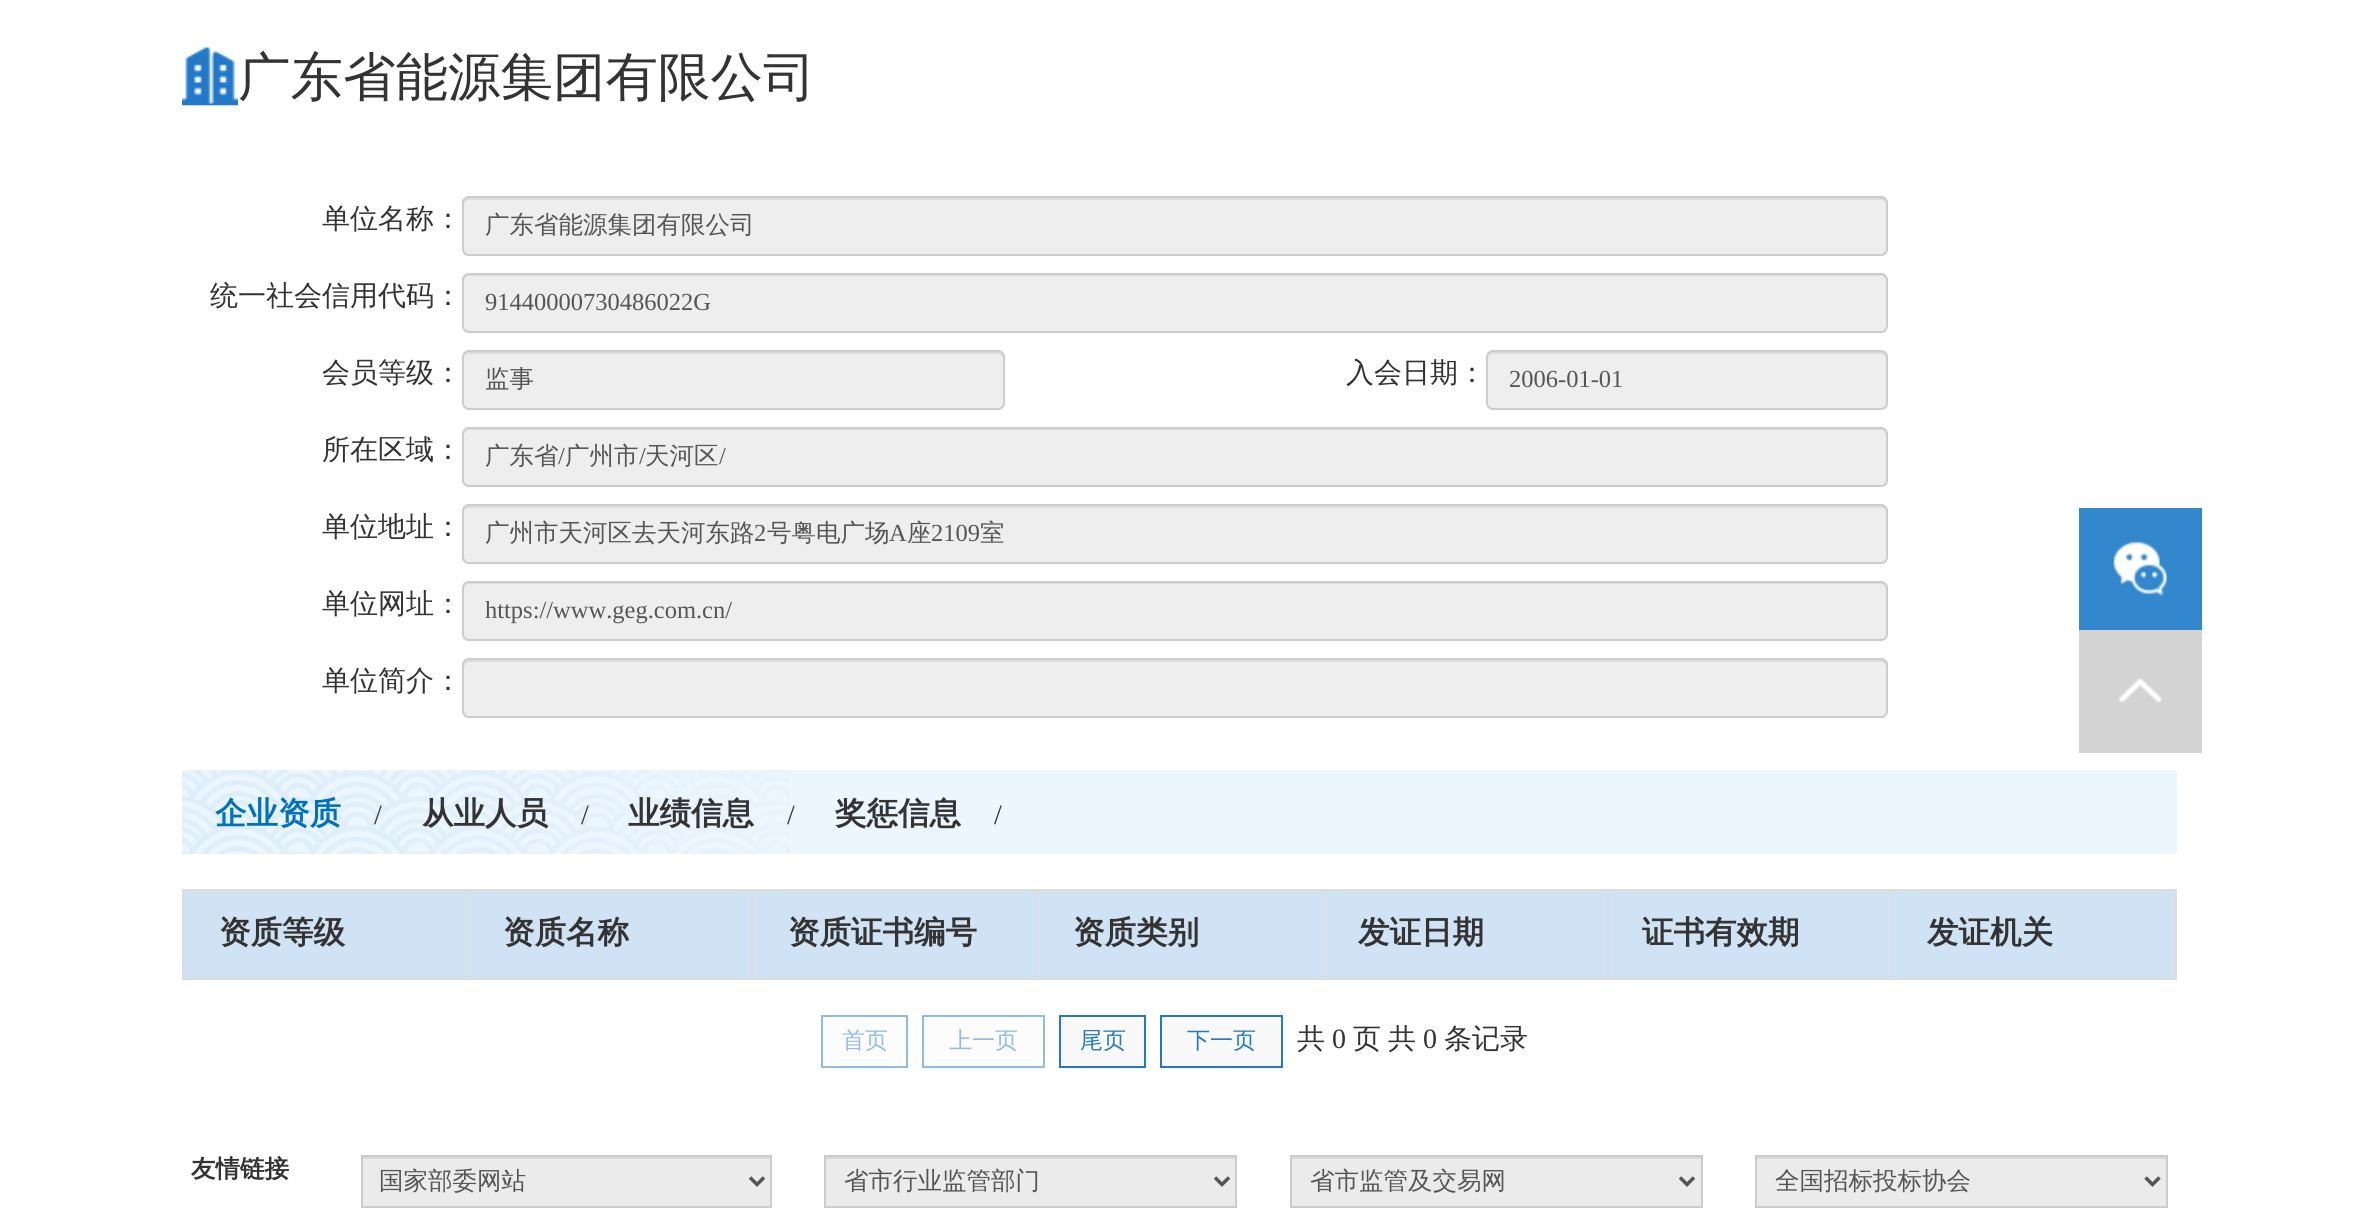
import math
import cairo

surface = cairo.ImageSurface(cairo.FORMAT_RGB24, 2359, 1217)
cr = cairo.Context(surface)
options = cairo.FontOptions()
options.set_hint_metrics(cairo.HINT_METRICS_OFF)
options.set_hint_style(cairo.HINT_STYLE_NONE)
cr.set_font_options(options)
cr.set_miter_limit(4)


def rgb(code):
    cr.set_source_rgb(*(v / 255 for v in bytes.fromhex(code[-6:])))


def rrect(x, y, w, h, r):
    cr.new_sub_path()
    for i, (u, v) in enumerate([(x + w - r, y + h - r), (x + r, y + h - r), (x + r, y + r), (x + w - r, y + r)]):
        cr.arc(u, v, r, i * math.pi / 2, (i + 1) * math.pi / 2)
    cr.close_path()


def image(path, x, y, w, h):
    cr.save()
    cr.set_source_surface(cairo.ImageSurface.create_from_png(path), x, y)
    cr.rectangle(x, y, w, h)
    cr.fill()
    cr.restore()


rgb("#ffffff")
cr.paint()
image("img/1.png", 182, 47, 56, 59)
rgb("#eeeeee")
rrect(462, 196, 1426, 60, 7)
cr.fill()
rgb("#dcdcdc")
cr.new_path()
cr.move_to(469, 200)
cr.line_to(1881, 200)
cr.curve_to(1884, 200, 1886, 202, 1886, 205)
cr.line_to(1886, 250)
cr.line_to(1886, 253)
cr.curve_to(1886, 252, 1887, 250, 1887, 249)
cr.line_to(1887, 203)
cr.curve_to(1887, 200, 1885, 198, 1882, 198)
cr.line_to(469, 198)
cr.curve_to(466, 198, 464, 200, 464, 203)
cr.line_to(464, 205)
cr.curve_to(464, 202, 466, 200, 469, 200)
cr.close_path()
cr.fill()
rrect(463, 197, 1424, 58, 6)
rgb("#cccccc")
cr.stroke()
rgb("#eeeeee")
rrect(462, 273, 1426, 60, 7)
cr.fill()
rgb("#dcdcdc")
cr.new_path()
cr.move_to(469, 276)
cr.line_to(1881, 276)
cr.curve_to(1884, 276, 1886, 279, 1886, 282)
cr.line_to(1886, 327)
cr.line_to(1885, 330)
cr.curve_to(1886, 329, 1887, 327, 1887, 326)
cr.line_to(1887, 280)
cr.curve_to(1887, 277, 1885, 275, 1882, 275)
cr.line_to(469, 275)
cr.curve_to(466, 275, 464, 277, 464, 280)
cr.line_to(464, 282)
cr.curve_to(464, 279, 466, 276, 469, 276)
cr.close_path()
cr.fill()
rrect(463, 274, 1424, 58, 6)
rgb("#cccccc")
cr.stroke()
rgb("#eeeeee")
rrect(462, 350, 543, 60, 7)
cr.fill()
rgb("#dcdcdc")
cr.new_path()
cr.move_to(469, 354)
cr.line_to(998, 354)
cr.curve_to(1000, 354, 1003, 356, 1003, 359)
cr.curve_to(1003, 356, 1002, 352, 998, 352)
cr.line_to(469, 352)
cr.curve_to(465, 352, 464, 356, 464, 359)
cr.curve_to(464, 356, 466, 354, 469, 354)
cr.close_path()
cr.fill()
rrect(463, 351, 541, 58, 6)
rgb("#cccccc")
cr.stroke()
rgb("#eeeeee")
rrect(1486, 350, 402, 60, 7)
cr.fill()
rgb("#dcdcdc")
cr.new_path()
cr.move_to(1493, 354)
cr.line_to(1881, 354)
cr.curve_to(1884, 354, 1886, 356, 1886, 359)
cr.line_to(1886, 404)
cr.line_to(1886, 407)
cr.curve_to(1886, 406, 1887, 404, 1887, 403)
cr.line_to(1887, 357)
cr.curve_to(1887, 354, 1885, 352, 1882, 352)
cr.line_to(1493, 352)
cr.curve_to(1490, 352, 1488, 354, 1488, 357)
cr.line_to(1488, 359)
cr.curve_to(1488, 356, 1490, 354, 1493, 354)
cr.close_path()
cr.fill()
rrect(1487, 351, 400, 58, 6)
rgb("#cccccc")
cr.stroke()
rgb("#eeeeee")
rrect(462, 427, 1426, 60, 7)
cr.fill()
rgb("#dcdcdc")
cr.new_path()
cr.move_to(469, 430)
cr.line_to(1881, 430)
cr.curve_to(1884, 430, 1886, 433, 1886, 436)
cr.line_to(1886, 481)
cr.line_to(1885, 484)
cr.curve_to(1886, 483, 1887, 481, 1887, 480)
cr.line_to(1887, 434)
cr.curve_to(1887, 431, 1885, 429, 1882, 429)
cr.line_to(469, 429)
cr.curve_to(466, 429, 464, 431, 464, 434)
cr.line_to(464, 436)
cr.curve_to(464, 433, 466, 430, 469, 430)
cr.close_path()
cr.fill()
rrect(463, 428, 1424, 58, 6)
rgb("#cccccc")
cr.stroke()
rgb("#eeeeee")
rrect(462, 504, 1426, 60, 7)
cr.fill()
rgb("#dcdcdc")
cr.new_path()
cr.move_to(469, 508)
cr.line_to(1881, 508)
cr.curve_to(1884, 508, 1886, 510, 1886, 513)
cr.line_to(1886, 558)
cr.line_to(1886, 561)
cr.curve_to(1886, 560, 1887, 558, 1887, 557)
cr.line_to(1887, 511)
cr.curve_to(1887, 508, 1885, 506, 1882, 506)
cr.line_to(469, 506)
cr.curve_to(466, 506, 464, 508, 464, 511)
cr.line_to(464, 513)
cr.curve_to(464, 510, 466, 508, 469, 508)
cr.close_path()
cr.fill()
rrect(463, 505, 1424, 58, 6)
rgb("#cccccc")
cr.stroke()
rgb("#eeeeee")
rrect(462, 581, 1426, 60, 7)
cr.fill()
rgb("#dcdcdc")
cr.new_path()
cr.move_to(469, 584)
cr.line_to(1881, 584)
cr.curve_to(1884, 584, 1886, 587, 1886, 590)
cr.line_to(1886, 635)
cr.line_to(1885, 638)
cr.curve_to(1886, 637, 1887, 635, 1887, 634)
cr.line_to(1887, 588)
cr.curve_to(1887, 585, 1885, 583, 1882, 583)
cr.line_to(469, 583)
cr.curve_to(466, 583, 464, 585, 464, 588)
cr.line_to(464, 590)
cr.curve_to(464, 587, 466, 584, 469, 584)
cr.close_path()
cr.fill()
rrect(463, 582, 1424, 58, 6)
rgb("#cccccc")
cr.stroke()
rgb("#eeeeee")
rrect(462, 658, 1426, 60, 7)
cr.fill()
rgb("#dcdcdc")
cr.new_path()
cr.move_to(469, 662)
cr.line_to(1881, 662)
cr.curve_to(1884, 662, 1886, 664, 1886, 667)
cr.line_to(1886, 712)
cr.line_to(1886, 715)
cr.curve_to(1886, 714, 1887, 712, 1887, 711)
cr.line_to(1887, 665)
cr.curve_to(1887, 662, 1885, 660, 1882, 660)
cr.line_to(469, 660)
cr.curve_to(466, 660, 464, 662, 464, 665)
cr.line_to(464, 667)
cr.curve_to(464, 664, 466, 662, 469, 662)
cr.close_path()
cr.fill()
rrect(463, 659, 1424, 58, 6)
rgb("#cccccc")
cr.stroke()
rgb("#ecf6fe")
cr.rectangle(182, 770, 1995, 84)
cr.fill()
image("img/2.png", 182, 770, 608, 84)
for x, y, w, h, color in [
    (182, 889, 1995, 2, "#dddddd"),
    (2175, 889, 2, 91, "#dddddd"),
    (182, 978, 1995, 2, "#dddddd"),
    (182, 889, 2, 91, "#dddddd"),
    (184, 891, 283, 87, "#d0e3f4"),
    (469, 891, 282, 87, "#d0e3f4"),
    (467, 889, 2, 91, "#dddddd"),
    (753, 891, 283, 87, "#d0e3f4"),
    (751, 889, 2, 91, "#dddddd"),
    (1038, 891, 283, 87, "#d0e3f4"),
    (1036, 889, 2, 91, "#dddddd"),
    (1323, 891, 284, 87, "#d0e3f4"),
    (1321, 889, 2, 91, "#dddddd"),
    (1609, 891, 281, 87, "#d0e3f4"),
    (1607, 889, 2, 91, "#dddddd"),
    (1892, 891, 283, 87, "#d0e3f4"),
    (1890, 889, 2, 91, "#dddddd"),
]:
    rgb(color)
    cr.rectangle(x, y, w, h)
    cr.fill()
rgb("#fcfcfc")
cr.rectangle(822, 1016, 85, 51)
cr.fill_preserve()
rgb("#90bce4")
cr.stroke()
rgb("#fcfcfc")
cr.rectangle(923, 1016, 121, 51)
cr.fill_preserve()
rgb("#90bce4")
cr.stroke()
rgb("#f9f9f9")
cr.rectangle(1060, 1016, 85, 51)
cr.fill_preserve()
rgb("#2179c8")
cr.stroke()
rgb("#f9f9f9")
cr.rectangle(1161, 1016, 121, 51)
cr.fill_preserve()
rgb("#2179c8")
cr.stroke()
rgb("#3387cd")
cr.rectangle(2079, 508, 123, 122)
cr.fill()
image("img/3.png", 2113, 541, 54, 55)
rgb("#d3d3d3")
cr.rectangle(2079, 630, 123, 123)
cr.fill()
image("img/4.png", 2119, 678, 43, 25)
rgb("#ebebeb")
cr.rectangle(363, 1159, 407, 47)
cr.fill()
rgb("#d9d9d9")
cr.rectangle(362, 1157, 408, 2)
cr.fill()
cr.rectangle(362, 1156, 409, 51)
rgb("#cccccc")
cr.stroke()
cr.new_path()
cr.move_to(750, 1177.5)
cr.line_to(757, 1184.5)
cr.line_to(764, 1177.5)
rgb("#555555")
cr.set_line_width(3.5)
cr.stroke()
rgb("#ebebeb")
cr.rectangle(826, 1159, 409, 47)
cr.fill()
rgb("#d9d9d9")
cr.rectangle(826, 1157, 410, 2)
cr.fill()
cr.rectangle(825, 1156, 411, 51)
rgb("#cccccc")
cr.set_line_width(2)
cr.stroke()
cr.new_path()
cr.move_to(1215, 1177.5)
cr.line_to(1222, 1184.5)
cr.line_to(1229, 1177.5)
rgb("#555555")
cr.set_line_width(3.5)
cr.stroke()
rgb("#ebebeb")
cr.rectangle(1292, 1159, 409, 47)
cr.fill()
rgb("#d9d9d9")
cr.rectangle(1292, 1157, 409, 2)
cr.fill()
cr.rectangle(1291, 1156, 411, 51)
rgb("#cccccc")
cr.set_line_width(2)
cr.stroke()
cr.new_path()
cr.move_to(1680, 1177.5)
cr.line_to(1687, 1184.5)
cr.line_to(1694, 1177.5)
rgb("#555555")
cr.set_line_width(3.5)
cr.stroke()
rgb("#ebebeb")
cr.rectangle(1757, 1159, 409, 47)
cr.fill()
rgb("#d9d9d9")
cr.rectangle(1757, 1157, 410, 2)
cr.fill()
cr.rectangle(1756, 1156, 411, 51)
rgb("#cccccc")
cr.set_line_width(2)
cr.stroke()
cr.new_path()
cr.move_to(2145.5, 1177.5)
cr.line_to(2152.5, 1184.5)
cr.line_to(2159.5, 1177.5)
rgb("#555555")
cr.set_line_width(3.5)
cr.stroke()
cr.select_font_face("WenQuanYi Zen Hei Medium")
cr.set_font_size(52.5)
rgb("#333333")
cr.move_to(238, 95)
cr.show_text("广东省能源集团有限公司")
cr.set_font_size(28)
cr.move_to(322, 228)
cr.show_text("单位名称：")
cr.set_font_size(24.5)
rgb("#555555")
cr.move_to(485, 233)
cr.show_text("广东省能源集团有限公司")
cr.set_font_size(28)
rgb("#333333")
cr.move_to(210, 305)
cr.show_text("统一社会信用代码：")
cr.select_font_face("Liberation Serif")
cr.set_font_size(24.5)
rgb("#555555")
cr.move_to(485, 310)
cr.show_text("91440000730486022G")
cr.select_font_face("WenQuanYi Zen Hei Medium")
cr.set_font_size(28)
rgb("#333333")
cr.move_to(322, 382)
cr.show_text("会员等级：")
cr.set_font_size(24.5)
rgb("#555555")
cr.move_to(485, 387)
cr.show_text("监事")
cr.set_font_size(28)
rgb("#333333")
cr.move_to(1346, 382)
cr.show_text("入会日期：")
cr.select_font_face("Liberation Serif")
cr.set_font_size(24.5)
rgb("#555555")
cr.move_to(1509, 387)
cr.show_text("2006-01-01")
cr.select_font_face("WenQuanYi Zen Hei Medium")
cr.set_font_size(28)
rgb("#333333")
cr.move_to(322, 459)
cr.show_text("所在区域：")
cr.set_font_size(24.5)
rgb("#555555")
cr.move_to(485, 464)
cr.show_text("广东省")
cr.select_font_face("Liberation Serif")
cr.move_to(558, 464)
cr.show_text("/")
cr.select_font_face("WenQuanYi Zen Hei Medium")
cr.move_to(565, 464)
cr.show_text("广州市")
cr.select_font_face("Liberation Serif")
cr.move_to(639, 464)
cr.show_text("/")
cr.select_font_face("WenQuanYi Zen Hei Medium")
cr.move_to(645, 464)
cr.show_text("天河区")
cr.select_font_face("Liberation Serif")
cr.move_to(719, 464)
cr.show_text("/")
cr.select_font_face("WenQuanYi Zen Hei Medium")
cr.set_font_size(28)
rgb("#333333")
cr.move_to(322, 536)
cr.show_text("单位地址：")
cr.set_font_size(24.5)
rgb("#555555")
cr.move_to(485, 541)
cr.show_text("广州市天河区去天河东路")
cr.select_font_face("Liberation Serif")
cr.move_to(754, 541)
cr.show_text("2")
cr.select_font_face("WenQuanYi Zen Hei Medium")
cr.move_to(767, 541)
cr.show_text("号粤电广场")
cr.select_font_face("Liberation Serif")
cr.move_to(889, 541)
cr.show_text("A")
cr.select_font_face("WenQuanYi Zen Hei Medium")
cr.move_to(907, 541)
cr.show_text("座")
cr.select_font_face("Liberation Serif")
cr.move_to(931, 541)
cr.show_text("2109")
cr.select_font_face("WenQuanYi Zen Hei Medium")
cr.move_to(980, 541)
cr.show_text("室")
cr.set_font_size(28)
rgb("#333333")
cr.move_to(322, 613)
cr.show_text("单位网址：")
cr.select_font_face("Liberation Serif")
cr.set_font_size(24.5)
rgb("#555555")
cr.move_to(485, 618)
cr.show_text("https://www.geg.com.cn/")
cr.select_font_face("WenQuanYi Zen Hei Medium")
cr.set_font_size(28)
rgb("#333333")
cr.move_to(322, 690)
cr.show_text("单位简介：")
cr.select_font_face("WenQuanYi Zen Hei", cairo.FONT_SLANT_NORMAL, cairo.FONT_WEIGHT_BOLD)
cr.set_font_size(31.5)
rgb("#0071bc")
cr.move_to(215, 824)
cr.show_text("企业资质")
cr.select_font_face("Liberation Serif")
cr.set_font_size(28)
rgb("#333333")
cr.move_to(374, 824)
cr.show_text("/")
cr.select_font_face("WenQuanYi Zen Hei", cairo.FONT_SLANT_NORMAL, cairo.FONT_WEIGHT_BOLD)
cr.set_font_size(31.5)
cr.move_to(422, 824)
cr.show_text("从业人员")
cr.select_font_face("Liberation Serif")
cr.set_font_size(28)
cr.move_to(581, 824)
cr.show_text("/")
cr.select_font_face("WenQuanYi Zen Hei", cairo.FONT_SLANT_NORMAL, cairo.FONT_WEIGHT_BOLD)
cr.set_font_size(31.5)
cr.move_to(628, 824)
cr.show_text("业绩信息")
cr.select_font_face("Liberation Serif")
cr.set_font_size(28)
cr.move_to(787, 824)
cr.show_text("/")
cr.select_font_face("WenQuanYi Zen Hei", cairo.FONT_SLANT_NORMAL, cairo.FONT_WEIGHT_BOLD)
cr.set_font_size(31.5)
cr.move_to(835, 824)
cr.show_text("奖惩信息")
cr.select_font_face("Liberation Serif")
cr.set_font_size(28)
cr.move_to(994, 824)
cr.show_text("/")
cr.select_font_face("WenQuanYi Zen Hei", cairo.FONT_SLANT_NORMAL, cairo.FONT_WEIGHT_BOLD)
cr.set_font_size(31.5)
for x, y, s in [
    (219, 943, "资质等级"),
    (503, 943, "资质名称"),
    (788, 943, "资质证书编号"),
    (1073, 943, "资质类别"),
    (1358, 943, "发证日期"),
    (1642, 943, "证书有效期"),
    (1927, 943, "发证机关"),
]:
    cr.move_to(x, y)
    cr.show_text(s)
cr.select_font_face("WenQuanYi Zen Hei Medium")
cr.set_font_size(23)
rgb("#90bce4")
cr.move_to(842, 1048)
cr.show_text("首页")
cr.move_to(949, 1048)
cr.show_text("上一页")
rgb("#2179c8")
cr.move_to(1080, 1048)
cr.show_text("尾页")
cr.move_to(1187, 1048)
cr.show_text("下一页")
cr.set_font_size(28)
rgb("#333333")
cr.move_to(1297, 1048)
cr.show_text("共")
cr.select_font_face("Liberation Serif")
cr.move_to(1332, 1048)
cr.show_text("0")
cr.select_font_face("WenQuanYi Zen Hei Medium")
cr.move_to(1353, 1048)
cr.show_text("页")
cr.move_to(1388, 1048)
cr.show_text("共")
cr.select_font_face("Liberation Serif")
cr.move_to(1423, 1048)
cr.show_text("0")
cr.select_font_face("WenQuanYi Zen Hei Medium")
cr.move_to(1444, 1048)
cr.show_text("条记录")
cr.select_font_face("WenQuanYi Zen Hei", cairo.FONT_SLANT_NORMAL, cairo.FONT_WEIGHT_BOLD)
cr.set_font_size(24.5)
cr.move_to(191, 1177)
cr.show_text("友情链接")
cr.select_font_face("WenQuanYi Zen Hei Medium")
rgb("#555555")
for x, y, s in [
    (379, 1189, "国家部委网站"),
    (844, 1189, "省市行业监管部门"),
    (1310, 1189, "省市监管及交易网"),
    (1775, 1189, "全国招标投标协会"),
]:
    cr.move_to(x, y)
    cr.show_text(s)
surface.write_to_png("page.png")
